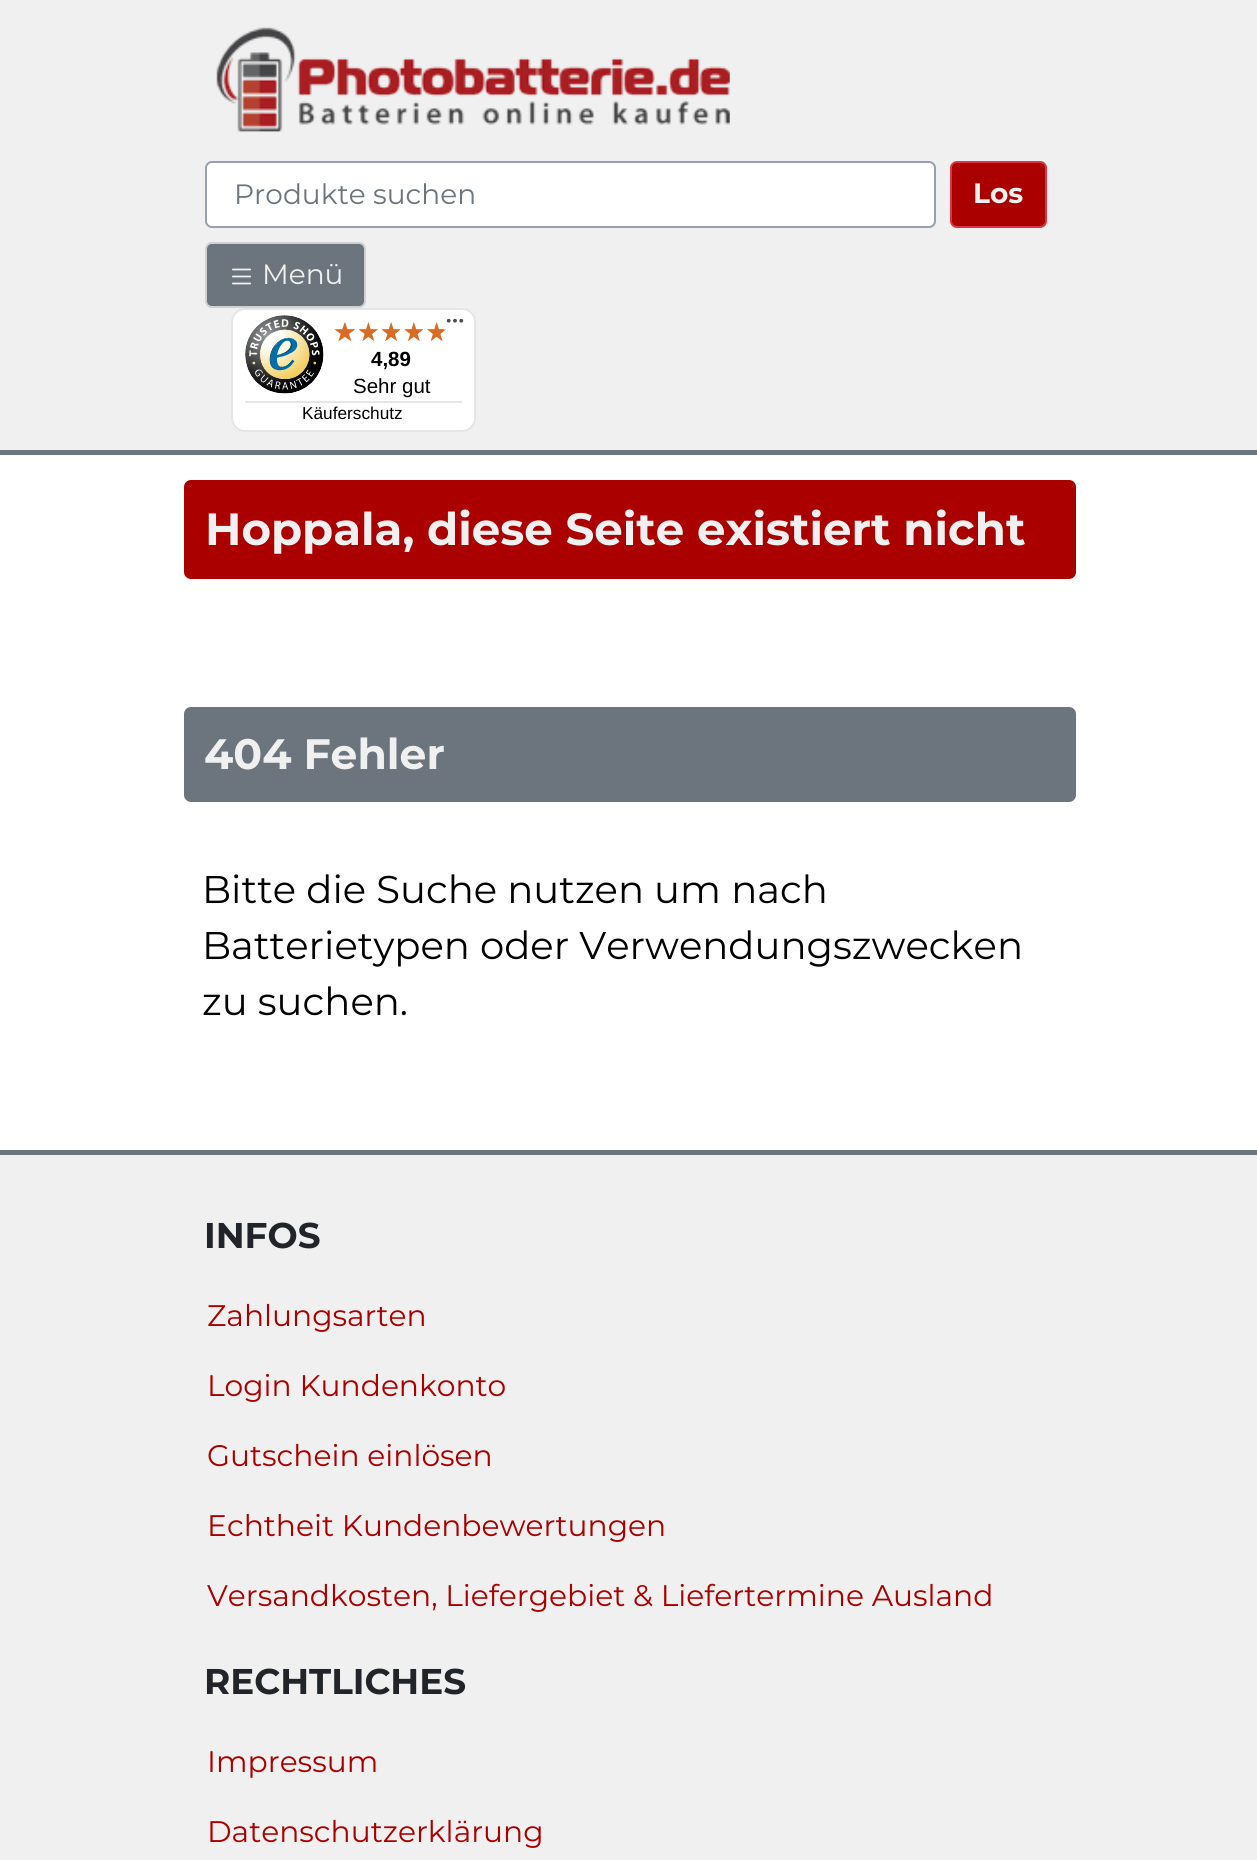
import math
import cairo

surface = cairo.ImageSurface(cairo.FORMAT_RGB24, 1257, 1860)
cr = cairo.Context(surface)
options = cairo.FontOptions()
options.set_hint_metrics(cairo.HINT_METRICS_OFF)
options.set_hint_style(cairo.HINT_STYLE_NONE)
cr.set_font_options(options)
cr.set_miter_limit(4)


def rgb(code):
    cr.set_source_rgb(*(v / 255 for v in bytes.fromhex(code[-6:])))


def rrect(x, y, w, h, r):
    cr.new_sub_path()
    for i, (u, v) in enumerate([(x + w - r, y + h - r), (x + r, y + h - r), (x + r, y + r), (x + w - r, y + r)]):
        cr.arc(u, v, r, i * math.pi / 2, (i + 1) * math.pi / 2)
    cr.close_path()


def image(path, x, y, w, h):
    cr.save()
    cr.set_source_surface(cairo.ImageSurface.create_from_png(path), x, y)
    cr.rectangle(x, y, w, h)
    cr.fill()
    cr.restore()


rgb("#ffffff")
cr.paint()
rgb("#f0f0f0")
cr.rectangle(0, 0, 1257, 450)
cr.fill()
rgb("#6c757d")
cr.rectangle(0, 450, 1257, 5)
cr.fill()
image("img/1.png", 216, 27, 514, 105)
rgb("#ffffff")
rrect(206, 162, 729, 65, 6)
cr.fill_preserve()
rgb("#95a0b0")
cr.stroke()
rgb("#aa0000")
rrect(951, 162, 95, 65, 6)
cr.fill_preserve()
rgb("#dc3545")
cr.stroke()
rgb("#6c757d")
rrect(206, 243, 159, 64, 6)
cr.fill_preserve()
rgb("#d0d0d0")
cr.stroke()
image("img/2.png", 231, 268, 21, 17)
rgb("#ffffff")
rrect(232, 309, 243, 122, 13)
cr.fill_preserve()
rgb("#e5e5e5")
cr.stroke()
image("img/3.png", 446, 319, 18, 4)
image("img/4.png", 245, 315, 79, 79)
image("img/10.png", 336, 322, 19, 19)
image("img/5.png", 334, 322, 21, 19)
image("img/11.png", 359, 322, 19, 19)
image("img/6.png", 359, 322, 19, 19)
image("img/12.png", 382, 322, 19, 19)
image("img/7.png", 382, 322, 19, 19)
image("img/13.png", 404, 322, 19, 19)
image("img/8.png", 404, 322, 20, 19)
image("img/10.png", 427, 322, 19, 19)
image("img/9.png", 427, 322, 18, 19)
cr.rectangle(245, 401, 217, 2)
cr.fill()
rgb("#aa0000")
rrect(184, 480, 892, 99, 7)
cr.fill()
rgb("#6c757d")
rrect(184, 707, 892, 95, 7)
cr.fill()
rgb("#f0f0f0")
cr.rectangle(0, 1155, 1257, 705)
cr.fill()
rgb("#6c757d")
cr.rectangle(0, 1150, 1257, 5)
cr.fill()
cr.select_font_face("Montserrat")
cr.set_font_size(28)
cr.move_to(234, 204)
cr.show_text("Produkte suchen")
cr.select_font_face("Montserrat", cairo.FONT_SLANT_NORMAL, cairo.FONT_WEIGHT_BOLD)
rgb("#f0f0f0")
cr.move_to(973, 203)
cr.show_text("Los")
cr.select_font_face("Montserrat")
cr.move_to(262, 284)
cr.show_text("Menü")
cr.select_font_face("Liberation Sans", cairo.FONT_SLANT_NORMAL, cairo.FONT_WEIGHT_BOLD)
cr.set_font_size(20.5)
rgb("#000000")
cr.move_to(371, 366)
cr.show_text("4,89")
cr.select_font_face("Liberation Sans")
cr.move_to(353, 393)
cr.show_text("Sehr gut")
cr.set_font_size(17.25)
cr.move_to(302, 419)
cr.show_text("Käuferschutz")
cr.select_font_face("Montserrat", cairo.FONT_SLANT_NORMAL, cairo.FONT_WEIGHT_BOLD)
cr.set_font_size(45.1)
rgb("#f0f0f0")
cr.move_to(205, 545)
cr.show_text("Hoppala, diese Seite existiert nicht")
cr.set_font_size(42.5)
cr.move_to(204, 769)
cr.show_text("404 Fehler")
cr.select_font_face("Montserrat")
cr.set_font_size(38.6)
rgb("#000000")
for x, y, s in [
    (202, 903, "Bitte die Suche nutzen um nach"),
    (202, 959, "Batterietypen oder Verwendungszwecken"),
    (202, 1015, "zu suchen."),
]:
    cr.move_to(x, y)
    cr.show_text(s)
cr.select_font_face("Montserrat", cairo.FONT_SLANT_NORMAL, cairo.FONT_WEIGHT_BOLD)
cr.set_font_size(35.75)
rgb("#212529")
cr.move_to(204, 1248)
cr.show_text("INFOS")
cr.select_font_face("Montserrat")
cr.set_font_size(29.75)
rgb("#aa0000")
for x, y, s in [
    (207, 1326, "Zahlungsarten"),
    (207, 1396, "Login Kundenkonto"),
    (207, 1466, "Gutschein einlösen"),
    (207, 1536, "Echtheit Kundenbewertungen"),
    (207, 1606, "Versandkosten, Liefergebiet & Liefertermine Ausland"),
]:
    cr.move_to(x, y)
    cr.show_text(s)
cr.select_font_face("Montserrat", cairo.FONT_SLANT_NORMAL, cairo.FONT_WEIGHT_BOLD)
cr.set_font_size(35.75)
rgb("#212529")
cr.move_to(204, 1694)
cr.show_text("RECHTLICHES")
cr.select_font_face("Montserrat")
cr.set_font_size(29.75)
rgb("#aa0000")
cr.move_to(207, 1772)
cr.show_text("Impressum")
cr.move_to(207, 1842)
cr.show_text("Datenschutzerklärung")
surface.write_to_png("page.png")
